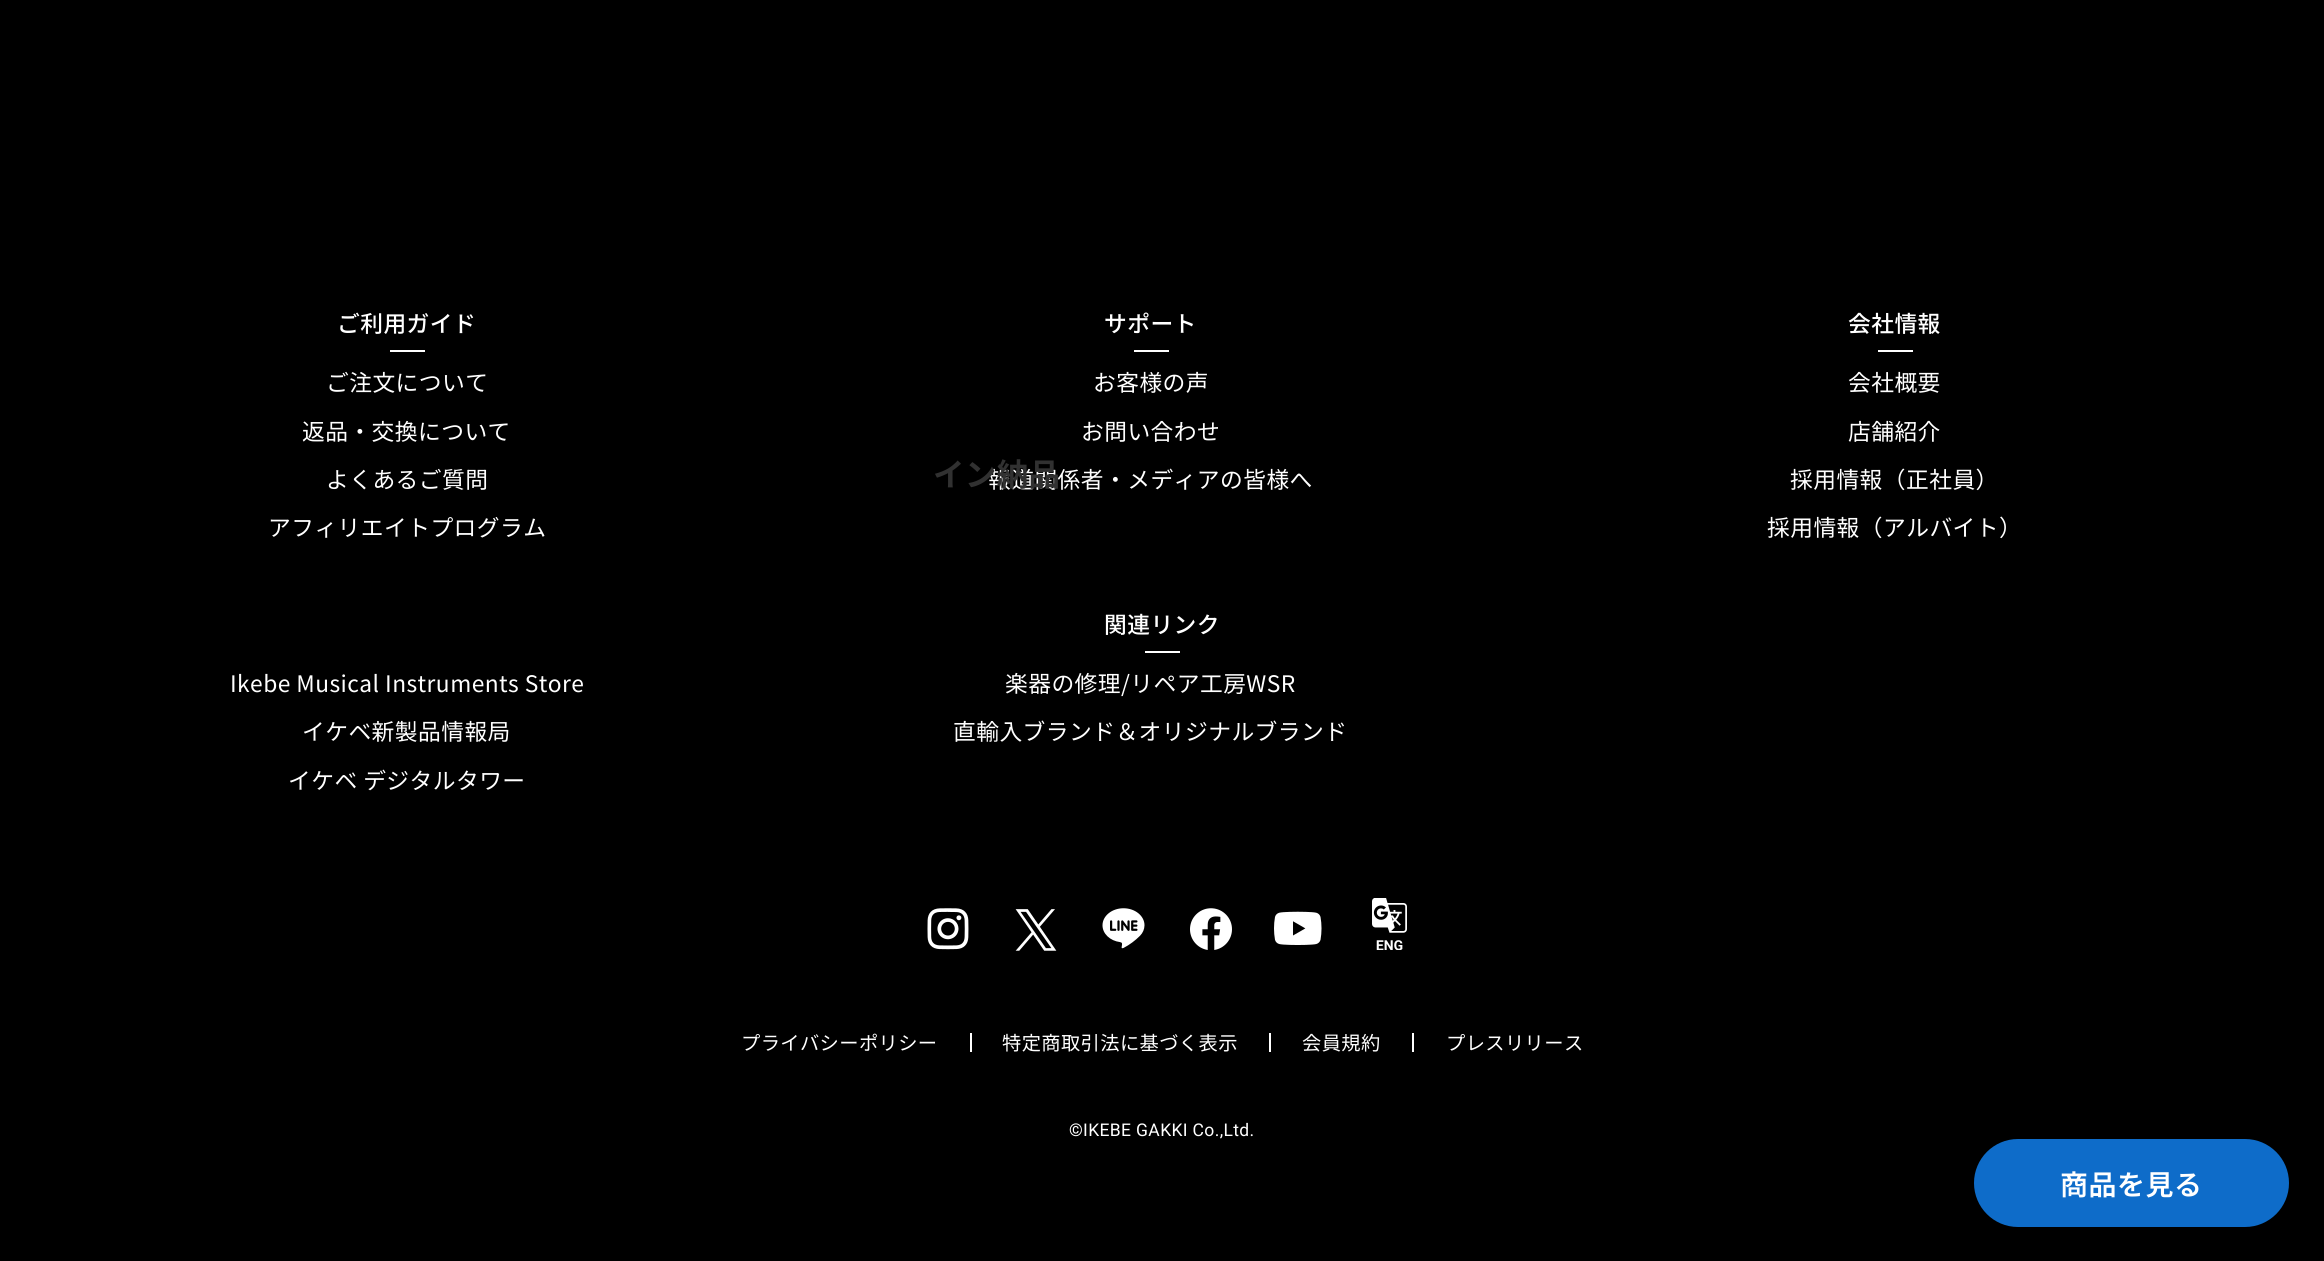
import math
import cairo

surface = cairo.ImageSurface(cairo.FORMAT_RGB24, 2324, 1261)
cr = cairo.Context(surface)
options = cairo.FontOptions()
options.set_hint_metrics(cairo.HINT_METRICS_OFF)
options.set_hint_style(cairo.HINT_STYLE_NONE)
cr.set_font_options(options)
cr.set_miter_limit(4)


def rgb(code):
    cr.set_source_rgb(*(v / 255 for v in bytes.fromhex(code[-6:])))


def tracked(x, y, s, letter, word):
    cr.move_to(x, y)
    for ch in s:
        cr.show_text(ch)
        cr.rel_move_to(letter + word * (ch == ' '), 0)


def rrect(x, y, w, h, r):
    cr.new_sub_path()
    for i, (u, v) in enumerate([(x + w - r, y + h - r), (x + r, y + h - r), (x + r, y + r), (x + w - r, y + r)]):
        cr.arc(u, v, r, i * math.pi / 2, (i + 1) * math.pi / 2)
    cr.close_path()


def image(path, x, y, w, h):
    cr.save()
    cr.set_source_surface(cairo.ImageSurface.create_from_png(path), x, y)
    cr.rectangle(x, y, w, h)
    cr.fill()
    cr.restore()


rgb("#000000")
cr.paint()
for x, y, w, h, color in [
    (390, 350, 35, 2, "#ffffff"),
    (1134, 350, 35, 2, "#ffffff"),
    (1878, 350, 35, 2, "#ffffff"),
    (1145, 651, 35, 2, "#ffffff"),
]:
    rgb(color)
    cr.rectangle(x, y, w, h)
    cr.fill()
image("img/1.png", 927, 908, 42, 42)
image("img/2.png", 1015, 909, 42, 42)
image("img/3.png", 1102, 908, 43, 41)
image("img/4.png", 1190, 908, 42, 42)
image("img/5.png", 1274, 911, 48, 34)
image("img/6.png", 1372, 898, 35, 52)
for x, y, w, h, color in [
    (970, 1033, 2, 19, "#ffffff"),
    (1269, 1033, 2, 19, "#ffffff"),
    (1412, 1033, 2, 19, "#ffffff"),
]:
    rgb(color)
    cr.rectangle(x, y, w, h)
    cr.fill()
rgb("#0e6cc9")
rrect(1975, 1140, 313, 86, 43)
cr.fill_preserve()
cr.stroke()
cr.select_font_face("Noto Sans JP Medium")
cr.set_font_size(22.75)
rgb("#ffffff")
tracked(337, 332, "ご利用ガイド", 0.45, 0)
cr.select_font_face("Noto Sans JP")
for x, y, s in [
    (326, 391, "ご注文について"),
    (302, 440, "返品・交換について"),
    (326, 488, "よくあるご質問"),
    (268, 536, "アフィリエイトプログラム"),
]:
    tracked(x, y, s, 0.45, 0)
cr.select_font_face("Noto Sans JP Medium")
tracked(1104, 332, "サポート", 0.45, 0)
cr.select_font_face("Noto Sans JP")
for x, y, s in [
    (1093, 391, "お客様の声"),
    (1081, 440, "お問い合わせ"),
    (988, 488, "報道関係者・メディアの皆様へ"),
]:
    tracked(x, y, s, 0.45, 0)
cr.select_font_face("Noto Sans JP Medium")
tracked(1848, 332, "会社情報", 0.45, 0)
cr.select_font_face("Noto Sans JP")
for x, y, s in [
    (1848, 391, "会社概要"),
    (1848, 440, "店舗紹介"),
    (1790, 488, "採用情報（正社員）"),
    (1767, 536, "採用情報（アルバイト）"),
]:
    tracked(x, y, s, 0.45, 0)
cr.select_font_face("Noto Sans JP Medium")
tracked(1104, 633, "関連リンク", 0.45, 0)
cr.select_font_face("Noto Sans JP")
for x, y, s in [
    (230, 692, "Ikebe Musical Instruments Store"),
    (302, 740, "イケベ新製品情報局"),
    (288, 789, "イケベ デジタルタワー"),
    (1005, 692, "楽器の修理/リペア工房WSR"),
    (953, 740, "直輸入ブランド＆オリジナルブランド"),
]:
    tracked(x, y, s, 0.45, 0)
cr.set_font_size(19.25)
for x, y, s in [
    (741, 1050, "プライバシーポリシー"),
    (1002, 1050, "特定商取引法に基づく表示"),
    (1302, 1050, "会員規約"),
    (1446, 1050, "プレスリリース"),
]:
    tracked(x, y, s, 0.4, 0)
cr.select_font_face("Roboto")
cr.set_font_size(17.5)
tracked(1069, 1136, "©IKEBE GAKKI Co.,Ltd.", 0.35, 0)
cr.select_font_face("Noto Sans JP", cairo.FONT_SLANT_NORMAL, cairo.FONT_WEIGHT_BOLD)
cr.set_font_size(31.5)
rgb("#313131")
tracked(933, 486, "イン納品", 0.35, 0)
cr.select_font_face("Noto Sans JP SemiBold")
cr.set_font_size(28)
rgb("#ffffff")
tracked(2060, 1195, "商品を見る", 0.5, 0)
surface.write_to_png("page.png")
